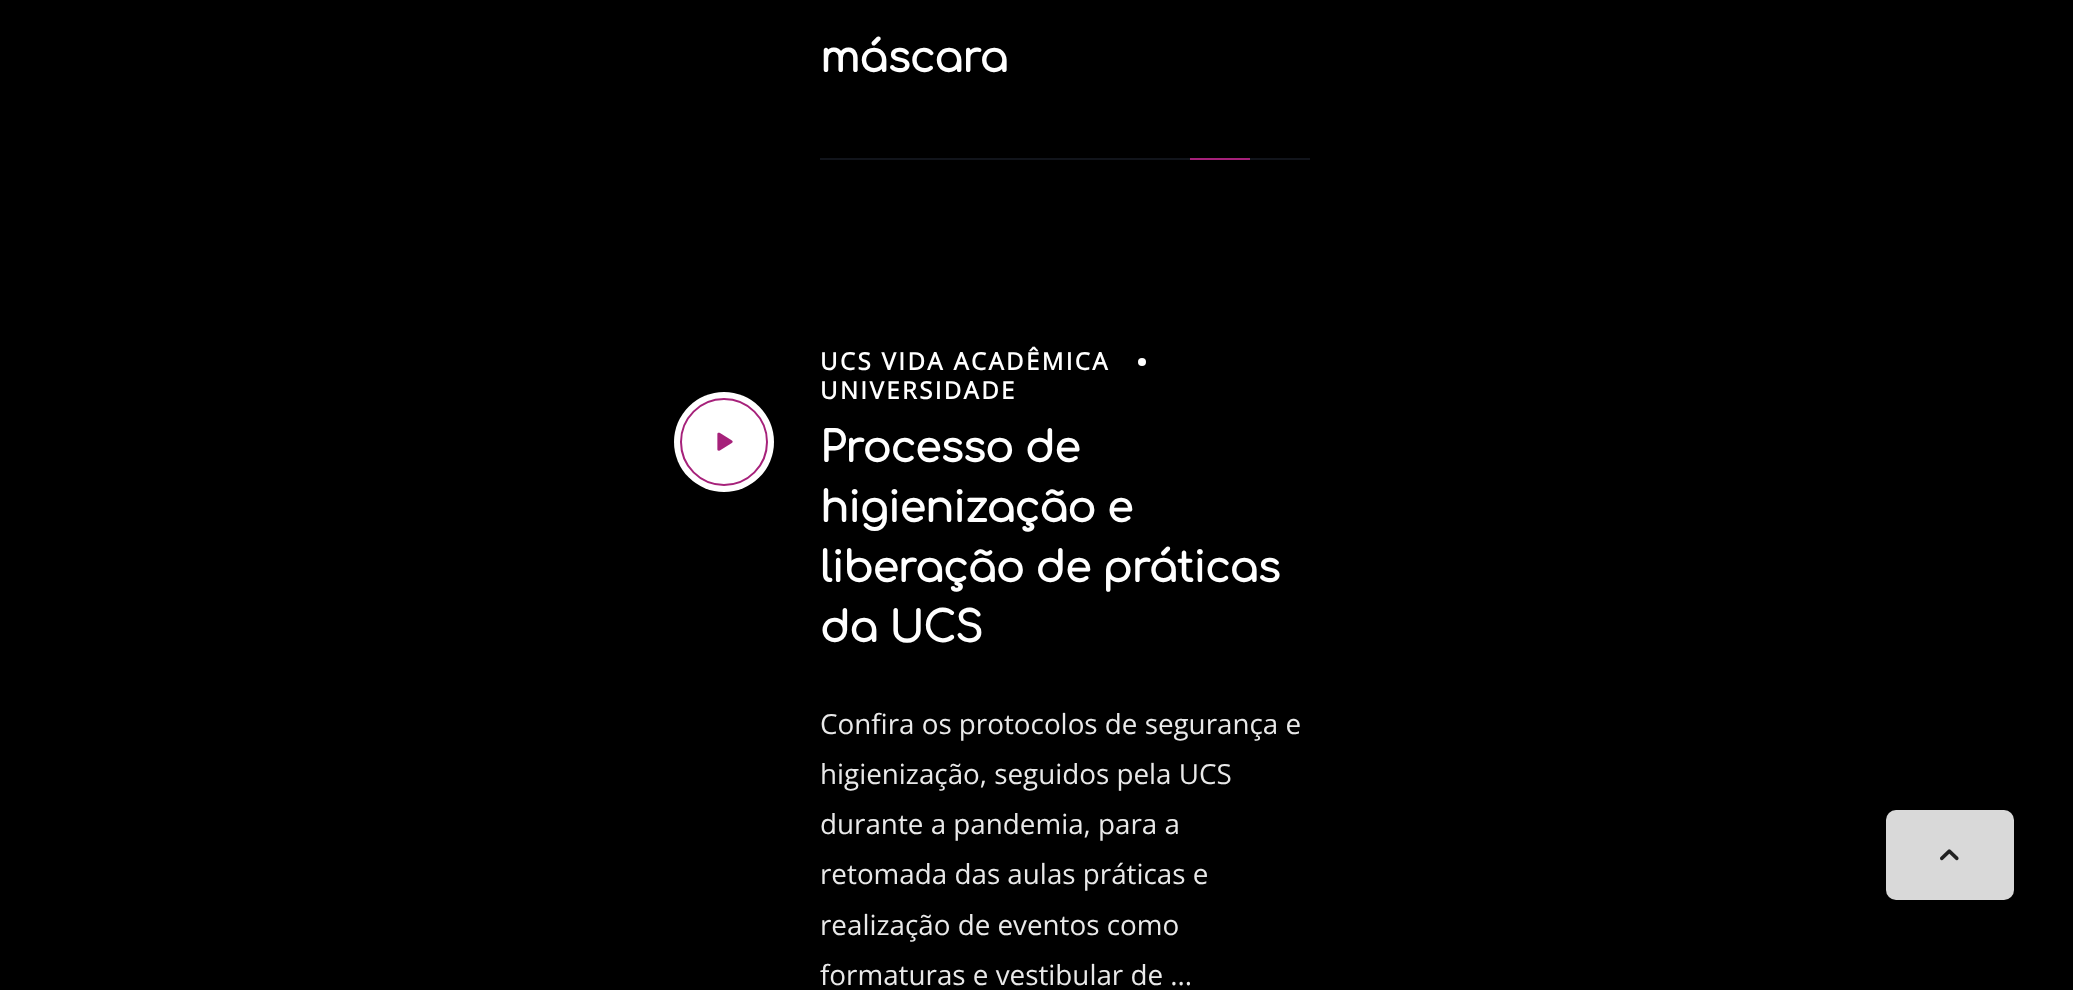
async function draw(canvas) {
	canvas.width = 2073;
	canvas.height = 990;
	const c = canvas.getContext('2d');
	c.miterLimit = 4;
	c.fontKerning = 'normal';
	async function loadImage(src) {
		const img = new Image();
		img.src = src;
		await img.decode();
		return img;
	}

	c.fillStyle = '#000';
	c.fillRect(0, 0, 2073, 990);
	c.letterSpacing = '-0.4px';
	c.font = 'bold 42px Comfortaa';
	c.fillStyle = '#fff';
	c.fillText('máscara', 820, 72);
	c.fillStyle = '#11141b';
	c.fillRect(820, 158, 490, 2);
	c.fillStyle = '#a6217a';
	c.fillRect(1190, 158, 60, 2);
	c.fillStyle = '#fff';
	c.beginPath();
	c.arc(724, 442, 50, 0, 2 * Math.PI);
	c.fill();
	c.beginPath();
	c.arc(724, 442, 43, 0, 2 * Math.PI);
	c.strokeStyle = '#a6217a';
	c.lineWidth = 2;
	c.stroke();
	c.drawImage(await loadImage('img1.png'), 717, 432, 16, 19);
	c.letterSpacing = '2.4px';
	c.font = 'bold 24px Open Sans';
	c.fillText('UCS VIDA ACADÊMICA', 820, 370);
	c.beginPath();
	c.arc(1142, 362, 4, 0, 2 * Math.PI);
	c.fill();
	c.fillText('UNIVERSIDADE', 820, 399);
	c.letterSpacing = '-0.4px';
	c.font = 'bold 42px Comfortaa';
	for (const [text, x, y] of [
		['Processo de', 820, 462],
		['higienização e', 820, 522],
		['liberação de práticas', 820, 582],
		['da UCS', 820, 642],
	]) {
		c.fillText(text, x, y);
	}
	c.letterSpacing = '0px';
	c.font = '27.8px Open Sans';
	c.fillStyle = '#e9e9e9';
	for (const [text, x, y] of [
		['Confira os protocolos de segurança e', 820, 734],
		['higienização, seguidos pela UCS', 820, 784],
		['durante a pandemia, para a', 820, 834],
		['retomada das aulas práticas e', 820, 884],
		['realização de eventos como', 820, 935],
		['formaturas e vestibular de ...', 820, 985],
	]) {
		c.fillText(text, x, y);
	}
	c.fillStyle = '#d9d9d9';
	c.beginPath();
	c.roundRect(1886, 810, 128, 90, 10);
	c.fill();
	c.drawImage(await loadImage('img2.png'), 1940, 849, 19, 12);
}

draw(document.querySelector('canvas'));
